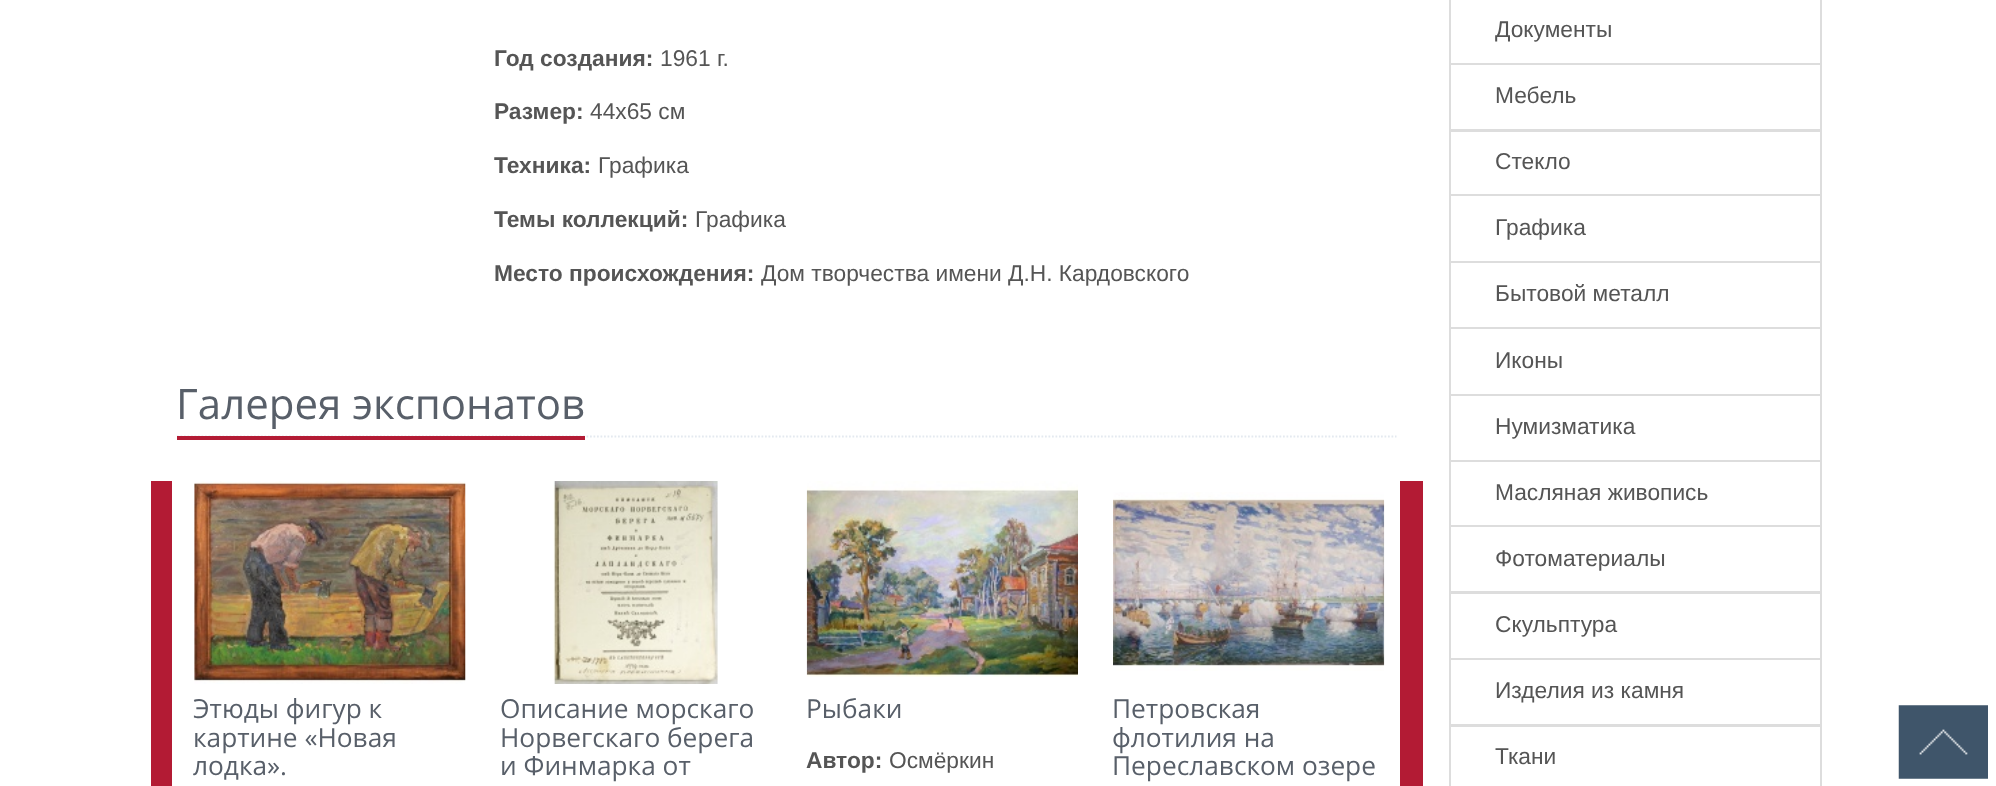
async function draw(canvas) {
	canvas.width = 1996;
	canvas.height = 786;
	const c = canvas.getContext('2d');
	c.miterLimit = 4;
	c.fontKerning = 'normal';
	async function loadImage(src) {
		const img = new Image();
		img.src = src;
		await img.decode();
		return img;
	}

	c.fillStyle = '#fff';
	c.fillRect(0, 0, 1996, 786);
	c.font = 'bold 22.75px Liberation Sans';
	c.fillStyle = '#555';
	c.fillText('Год создания:', 494, 66);
	c.font = '22.75px Liberation Sans';
	c.fillText('1961 г.', 660, 66);
	c.font = 'bold 22.75px Liberation Sans';
	c.fillText('Размер:', 494, 119);
	c.font = '22.75px Liberation Sans';
	c.fillText('44х65 см', 590, 119);
	c.font = 'bold 22.75px Liberation Sans';
	c.fillText('Техника:', 494, 173);
	c.font = '22.75px Liberation Sans';
	c.fillText('Графика', 598, 173);
	c.font = 'bold 22.75px Liberation Sans';
	c.fillText('Темы коллекций:', 494, 227);
	c.font = '22.75px Liberation Sans';
	c.fillText('Графика', 695, 227);
	c.font = 'bold 22.75px Liberation Sans';
	c.fillText('Место происхождения:', 494, 281);
	c.font = '22.75px Liberation Sans';
	c.fillText('Дом творчества имени Д.Н. Кардовского', 761, 281);
	c.beginPath();
	c.moveTo(177, 436.5);
	c.lineTo(1396.5, 436.5);
	c.strokeStyle = '#e4e9f0';
	c.lineWidth = 1.8;
	c.setLineDash([1.75, 1.75]);
	c.stroke();
	c.fillStyle = '#b31b34';
	c.fillRect(177, 436, 408, 4);
	c.font = '42px Open Sans';
	c.fillStyle = '#585f69';
	c.fillText('Галерея экспонатов', 176, 419);
	c.fillStyle = '#b31b34';
	c.fillRect(151, 481, 21, 305);
	c.drawImage(await loadImage('img1.png'), 194, 481, 272, 203);
	c.font = '26.25px Open Sans';
	c.fillStyle = '#585f69';
	for (const [text, x, y] of [
		['Этюды фигур к', 193, 718],
		['картине «Новая', 193, 747],
		['лодка».', 193, 775],
	]) {
		c.fillText(text, x, y);
	}
	c.drawImage(await loadImage('img2.png'), 553, 481, 165, 203);
	for (const [text, x, y] of [
		['Описание морскаго', 500, 718],
		['Норвегскаго берега', 500, 747],
		['и Финмарка от', 500, 775],
	]) {
		c.fillText(text, x, y);
	}
	c.drawImage(await loadImage('img3.png'), 806, 481, 272, 196);
	c.fillText('Рыбаки', 806, 718);
	c.font = 'bold 22.75px Liberation Sans';
	c.fillStyle = '#555';
	c.fillText('Автор:', 806, 768);
	c.font = '22.75px Liberation Sans';
	c.fillText('Осмёркин', 889, 768);
	c.drawImage(await loadImage('img4.png'), 1113, 492, 272, 179);
	c.font = '26.25px Open Sans';
	c.fillStyle = '#585f69';
	for (const [text, x, y] of [
		['Петровская', 1112, 718],
		['флотилия на', 1112, 747],
		['Переславском озере', 1112, 775],
	]) {
		c.fillText(text, x, y);
	}
	c.fillStyle = '#b31b34';
	c.fillRect(1400, 481, 23, 305);
	c.strokeStyle = '#ddd';
	c.lineWidth = 2;
	c.setLineDash([]);
	c.strokeRect(1450, -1, 371, 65);
	c.font = '22.75px Liberation Sans';
	c.fillStyle = '#555';
	c.fillText('Документы', 1495, 37);
	c.strokeRect(1450, 64, 371, 66);
	c.fillText('Мебель', 1495, 103);
	c.strokeRect(1450, 131, 371, 64);
	c.fillText('Стекло', 1495, 169);
	c.strokeRect(1450, 195, 371, 67);
	c.fillText('Графика', 1495, 235);
	c.strokeRect(1450, 262, 371, 66);
	c.fillText('Бытовой металл', 1495, 301);
	c.strokeRect(1450, 328, 371, 67);
	c.fillText('Иконы', 1495, 368);
	c.strokeRect(1450, 395, 371, 66);
	c.fillText('Нумизматика', 1495, 434);
	c.strokeRect(1450, 461, 371, 65);
	c.fillText('Масляная живопись', 1495, 500);
	c.strokeRect(1450, 526, 371, 66);
	c.fillText('Фотоматериалы', 1495, 566);
	c.strokeRect(1450, 593, 371, 66);
	c.fillText('Скульптура', 1495, 632);
	c.strokeRect(1450, 659, 371, 66);
	c.fillText('Изделия из камня', 1495, 698);
	c.strokeRect(1450, 726, 371, 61);
	c.fillText('Ткани', 1495, 764);
	c.drawImage(await loadImage('img5.png'), 1898, 705, 90, 74);
}

draw(document.querySelector('canvas'));
